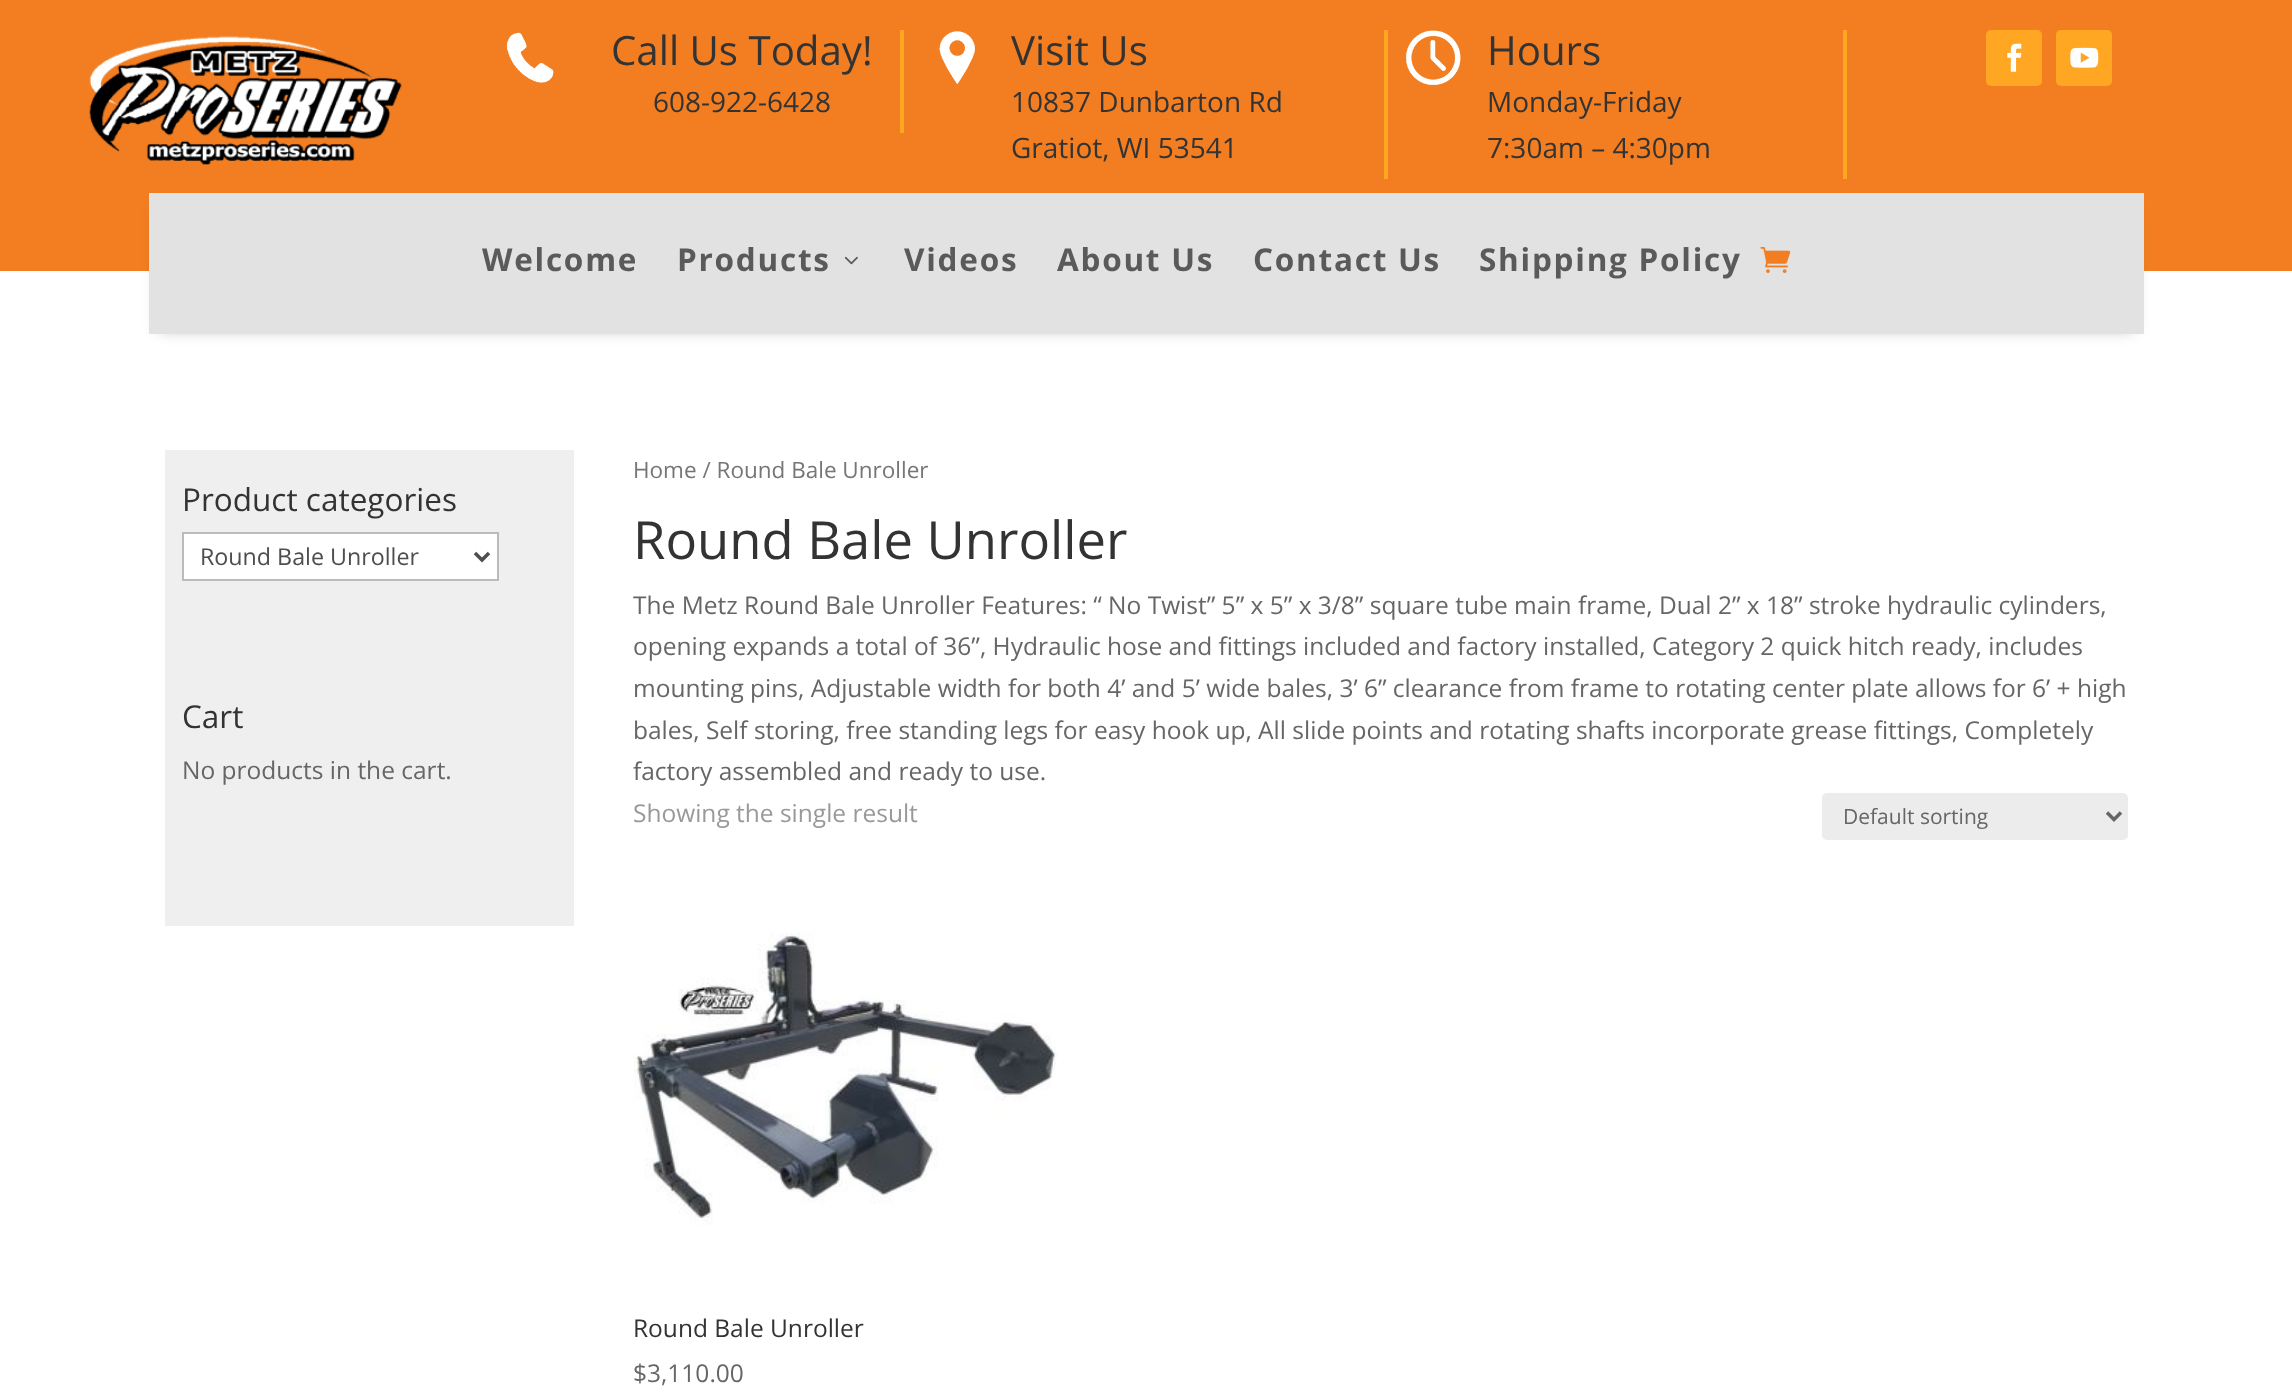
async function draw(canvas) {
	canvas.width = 2292;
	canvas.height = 1393;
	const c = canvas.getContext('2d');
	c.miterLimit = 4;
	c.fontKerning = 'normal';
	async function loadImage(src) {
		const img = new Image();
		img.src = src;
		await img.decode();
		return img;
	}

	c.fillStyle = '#fff';
	c.fillRect(0, 0, 2292, 1393);
	c.fillStyle = '#f27e21';
	c.fillRect(0, 0, 2292, 271);
	c.drawImage(await loadImage('img1.png'), 89, 36, 313, 129);
	c.fillStyle = '#ffa723';
	c.fillRect(900, 30, 4, 103);
	c.drawImage(await loadImage('img2.png'), 506, 32, 48, 51);
	c.font = '40.25px Open Sans';
	c.fillStyle = '#333';
	c.fillText('Call Us Today!', 611, 65);
	c.font = '28px Open Sans';
	c.fillText('608-922-6428', 653, 112);
	c.fillStyle = '#ffa723';
	c.fillRect(1384, 30, 4, 149);
	c.drawImage(await loadImage('img3.png'), 939, 31, 36, 53);
	c.font = '40.25px Open Sans';
	c.fillStyle = '#333';
	c.fillText('Visit Us', 1011, 65);
	c.font = '28px Open Sans';
	c.fillText('10837 Dunbarton Rd', 1011, 112);
	c.fillText('Gratiot, WI 53541', 1011, 158);
	c.fillStyle = '#ffa723';
	c.fillRect(1843, 30, 4, 149);
	c.drawImage(await loadImage('img4.png'), 1406, 30, 55, 55);
	c.font = '40.25px Open Sans';
	c.fillStyle = '#333';
	c.fillText('Hours', 1487, 65);
	c.font = '28px Open Sans';
	c.fillText('Monday-Friday', 1487, 112);
	c.fillText('7:30am – 4:30pm', 1487, 158);
	c.fillStyle = '#ffa723';
	c.beginPath();
	c.roundRect(1986, 30, 56, 56, 5);
	c.fill();
	c.drawImage(await loadImage('img5.png'), 2007, 43, 15, 29);
	c.beginPath();
	c.roundRect(2056, 30, 56, 56, 5);
	c.fill();
	c.drawImage(await loadImage('img6.png'), 2070, 47, 29, 21);
	c.fillStyle = '#0000004d';
	c.filter = 'blur(8px)';
	c.beginPath();
	c.rect(159, 208, 1974, 121);
	c.fill();
	c.filter = 'none';
	c.fillStyle = '#e2e2e2';
	c.fillRect(149, 193, 1995, 141);
	c.letterSpacing = '1.75px';
	c.font = 'bold 31.5px Open Sans';
	c.fillStyle = '#5a5a5a';
	c.fillText('Welcome', 482, 271);
	c.fillText('Products', 677, 271);
	c.drawImage(await loadImage('img7.png'), 844, 256, 14, 9);
	for (const [text, x, y] of [
		['Videos', 904, 271],
		['About Us', 1057, 271],
		['Contact Us', 1253, 271],
		['Shipping Policy', 1479, 271],
	]) {
		c.fillText(text, x, y);
	}
	c.drawImage(await loadImage('img8.png'), 1760, 247, 31, 26);
	c.fillStyle = '#efefef';
	c.fillRect(165, 450, 409, 476);
	c.letterSpacing = '0px';
	c.font = '31.5px Open Sans';
	c.fillStyle = '#333';
	c.fillText('Product categories', 182, 511);
	c.fillStyle = '#fff';
	c.beginPath();
	c.rect(183, 533, 315, 47);
	c.fill();
	c.strokeStyle = '#bbb';
	c.lineWidth = 2;
	c.stroke();
	c.beginPath();
	c.moveTo(475, 553);
	c.lineTo(482, 560);
	c.lineTo(489, 553);
	c.strokeStyle = '#4e4e4e';
	c.lineWidth = 3.5;
	c.stroke();
	c.font = '23.25px Open Sans';
	c.fillStyle = '#4e4e4e';
	c.fillText('Round Bale Unroller', 200, 565);
	c.font = '31.5px Open Sans';
	c.fillStyle = '#333';
	c.fillText('Cart', 182, 728);
	c.font = '24.5px Open Sans';
	c.fillStyle = '#666';
	c.fillText('No products in the cart.', 182, 779);
	c.font = '22.5px Open Sans';
	c.fillStyle = '#767676';
	c.fillText('Home / Round Bale Unroller', 633, 478);
	c.font = '52.5px Open Sans';
	c.fillStyle = '#333';
	c.fillText('Round Bale Unroller', 633, 559);
	c.font = '24.5px Open Sans';
	c.fillStyle = '#666';
	for (const [text, x, y] of [
		['The Metz Round Bale Unroller Features: “ No Twist” 5” x 5” x 3/8” square tube main frame, Dual 2” x 18” stroke hydraulic cylinders,', 633, 614],
		['opening expands a total of 36”, Hydraulic hose and fittings included and factory installed, Category 2 quick hitch ready, includes', 633, 655],
		['mounting pins, Adjustable width for both 4’ and 5’ wide bales, 3’ 6” clearance from frame to rotating center plate allows for 6’ + high', 633, 697],
		['bales, Self storing, free standing legs for easy hook up, All slide points and rotating shafts incorporate grease fittings, Completely', 633, 739],
		['factory assembled and ready to use.', 633, 780],
	]) {
		c.fillText(text, x, y);
	}
	c.fillStyle = '#999';
	c.fillText('Showing the single result', 633, 822);
	c.fillStyle = '#ececec';
	c.beginPath();
	c.roundRect(1822, 793, 306, 47, 5);
	c.fill();
	c.beginPath();
	c.moveTo(2107, 812.5);
	c.lineTo(2114, 819.5);
	c.lineTo(2121, 812.5);
	c.strokeStyle = '#666';
	c.stroke();
	c.font = '21px Open Sans';
	c.fillStyle = '#666';
	c.fillText('Default sorting', 1843, 824);
	c.drawImage(await loadImage('img9.png'), 633, 932, 424, 294);
	c.font = '24.5px Open Sans';
	c.fillStyle = '#333';
	c.fillText('Round Bale Unroller', 633, 1337);
	c.fillStyle = '#666';
	c.fillText('$3,110.00', 633, 1382);
}

draw(document.querySelector('canvas'));
